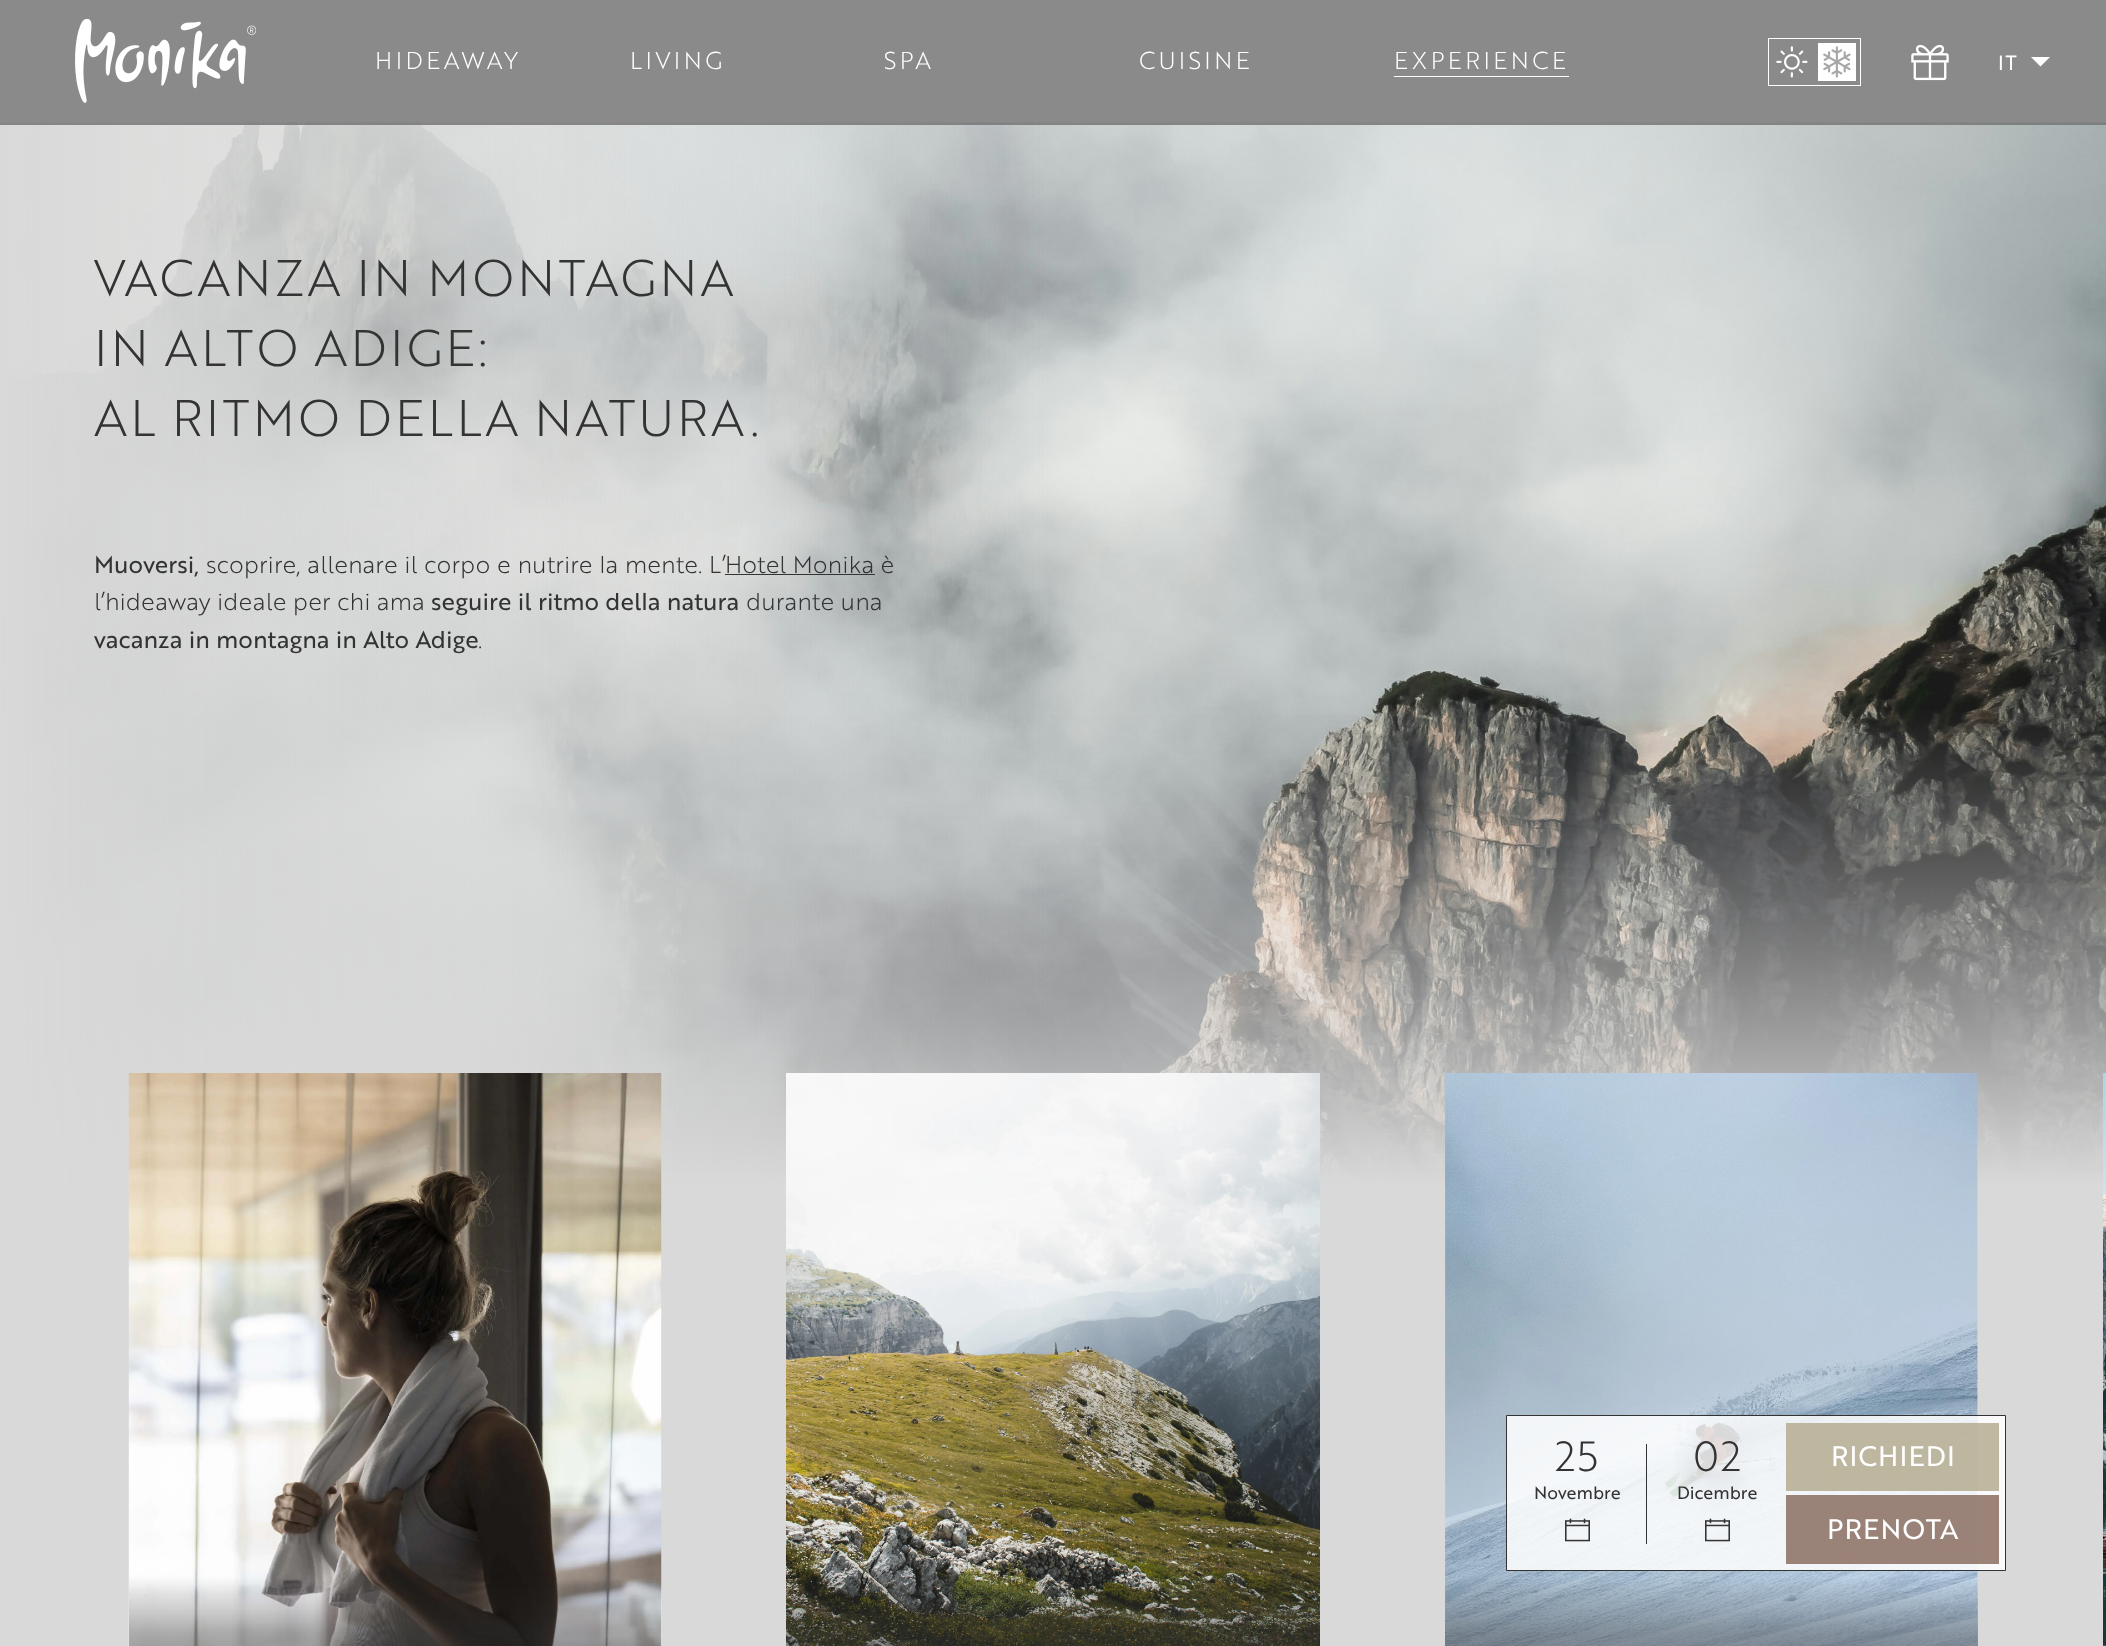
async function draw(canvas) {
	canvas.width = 2106;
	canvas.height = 1646;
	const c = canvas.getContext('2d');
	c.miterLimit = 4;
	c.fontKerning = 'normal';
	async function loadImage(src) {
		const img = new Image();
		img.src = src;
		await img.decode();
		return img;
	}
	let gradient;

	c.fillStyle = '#fff';
	c.fillRect(0, 0, 2106, 1646);
	c.drawImage(await loadImage('img5.png'), 0, 122, 2106, 1063);
	c.fillStyle = '#767676d9';
	c.fillRect(0, 0, 2106, 125);
	c.drawImage(await loadImage('img1.png'), 75, 19, 181, 84);
	c.letterSpacing = '2.5px';
	c.font = '300 23.75px "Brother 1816"';
	c.fillStyle = '#fff';
	for (const [text, x, y] of [
		['HIDEAWAY', 375, 69],
		['LIVING', 630, 69],
		['SPA', 884, 69],
		['CUISINE', 1139, 69],
		['EXPERIENCE', 1394, 69],
	]) {
		c.fillText(text, x, y);
	}
	c.fillRect(1394, 76, 175, 1);
	c.strokeStyle = '#fff';
	c.strokeRect(1768.5, 38.5, 92, 47);
	c.drawImage(await loadImage('img2.png'), 1776, 46, 32, 32);
	c.fillRect(1818, 43, 38, 38);
	c.drawImage(await loadImage('img3.png'), 1823, 46, 28, 32);
	c.drawImage(await loadImage('img4.png'), 1911, 44, 38, 37);
	c.letterSpacing = '1px';
	c.font = '20px "Brother 1816"';
	c.fillText('IT', 1998, 70);
	c.beginPath();
	c.moveTo(2050, 57);
	c.lineTo(2040.5, 66.5);
	c.lineTo(2031, 57);
	c.closePath();
	c.fill();
	c.letterSpacing = '1.25px';
	c.font = '300 50px "Brother 1816"';
	c.fillStyle = '#333';
	for (const [text, x, y] of [
		['VACANZA IN MONTAGNA', 94, 296],
		['IN ALTO ADIGE:', 94, 366],
		['AL RITMO DELLA NATURA.', 94, 436],
	]) {
		c.fillText(text, x, y);
	}
	c.letterSpacing = '0px';
	c.font = '23.75px "Brother 1816"';
	c.fillText('Muoversi,', 94, 573);
	c.wordSpacing = '0.25px';
	c.font = '300 23.75px "Brother 1816"';
	c.fillText('scoprire, allenare il corpo e nutrire la mente. L’', 206, 573);
	c.wordSpacing = '0px';
	c.fillText('Hotel Monika è', 725, 573);
	c.fillRect(725, 574, 150, 1);
	c.fillText('l’hideaway ideale per chi ama', 94, 610);
	c.font = '23.75px "Brother 1816"';
	c.fillText('seguire il ritmo della natura', 431, 610);
	c.font = '300 23.75px "Brother 1816"';
	c.fillText('durante una', 746, 610);
	c.font = '23.75px "Brother 1816"';
	c.fillText('vacanza in montagna in Alto Adige', 94, 648);
	c.font = '300 23.75px "Brother 1816"';
	c.fillText('.', 478, 648);
	c.fillStyle = '#d9d9d9';
	c.fillRect(0, 1185, 2103, 461);
	c.drawImage(await loadImage('img6.png'), 128, 1073, 534, 573);
	c.drawImage(await loadImage('img7.png'), 786, 1073, 534, 573);
	c.drawImage(await loadImage('img8.png'), 1445, 1073, 533, 573);
	gradient = c.createLinearGradient(1711, 1576, 1711, 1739);
	gradient.addColorStop(0, '#33333300');
	gradient.addColorStop(0.35, '#33333366');
	gradient.addColorStop(0.7, '#33333399');
	c.fillStyle = gradient;
	c.fillRect(1445, 1579, 533, 67);
	c.drawImage(await loadImage('img9.png'), 2103, 1073, 3, 573);
	c.fillStyle = '#ffffffd9';
	c.beginPath();
	c.rect(1506.5, 1415.5, 499, 155);
	c.fill();
	c.strokeStyle = '#333';
	c.stroke();
	c.font = '300 41px "Brother 1816"';
	c.fillStyle = '#333';
	c.fillText('25', 1555, 1471);
	c.font = '17.5px "Brother 1816"';
	c.fillText('Novembre', 1534, 1499);
	c.drawImage(await loadImage('img10.png'), 1565, 1518, 25, 24);
	c.fillRect(1646, 1444, 1, 100);
	c.font = '300 41px "Brother 1816"';
	c.fillText('02', 1693, 1471);
	c.font = '17.5px "Brother 1816"';
	c.fillText('Dicembre', 1677, 1499);
	c.drawImage(await loadImage('img11.png'), 1705, 1518, 25, 24);
	c.fillStyle = '#b5ac90d9';
	c.fillRect(1786, 1423, 213, 68);
	c.font = '27.5px "Brother 1816"';
	c.fillStyle = '#fff';
	c.fillText('RICHIEDI', 1831, 1466);
	c.fillStyle = '#8a6d60d9';
	c.fillRect(1786, 1495, 213, 69);
	c.fillStyle = '#fff';
	c.fillText('PRENOTA', 1827, 1539);
}

draw(document.querySelector('canvas'));
